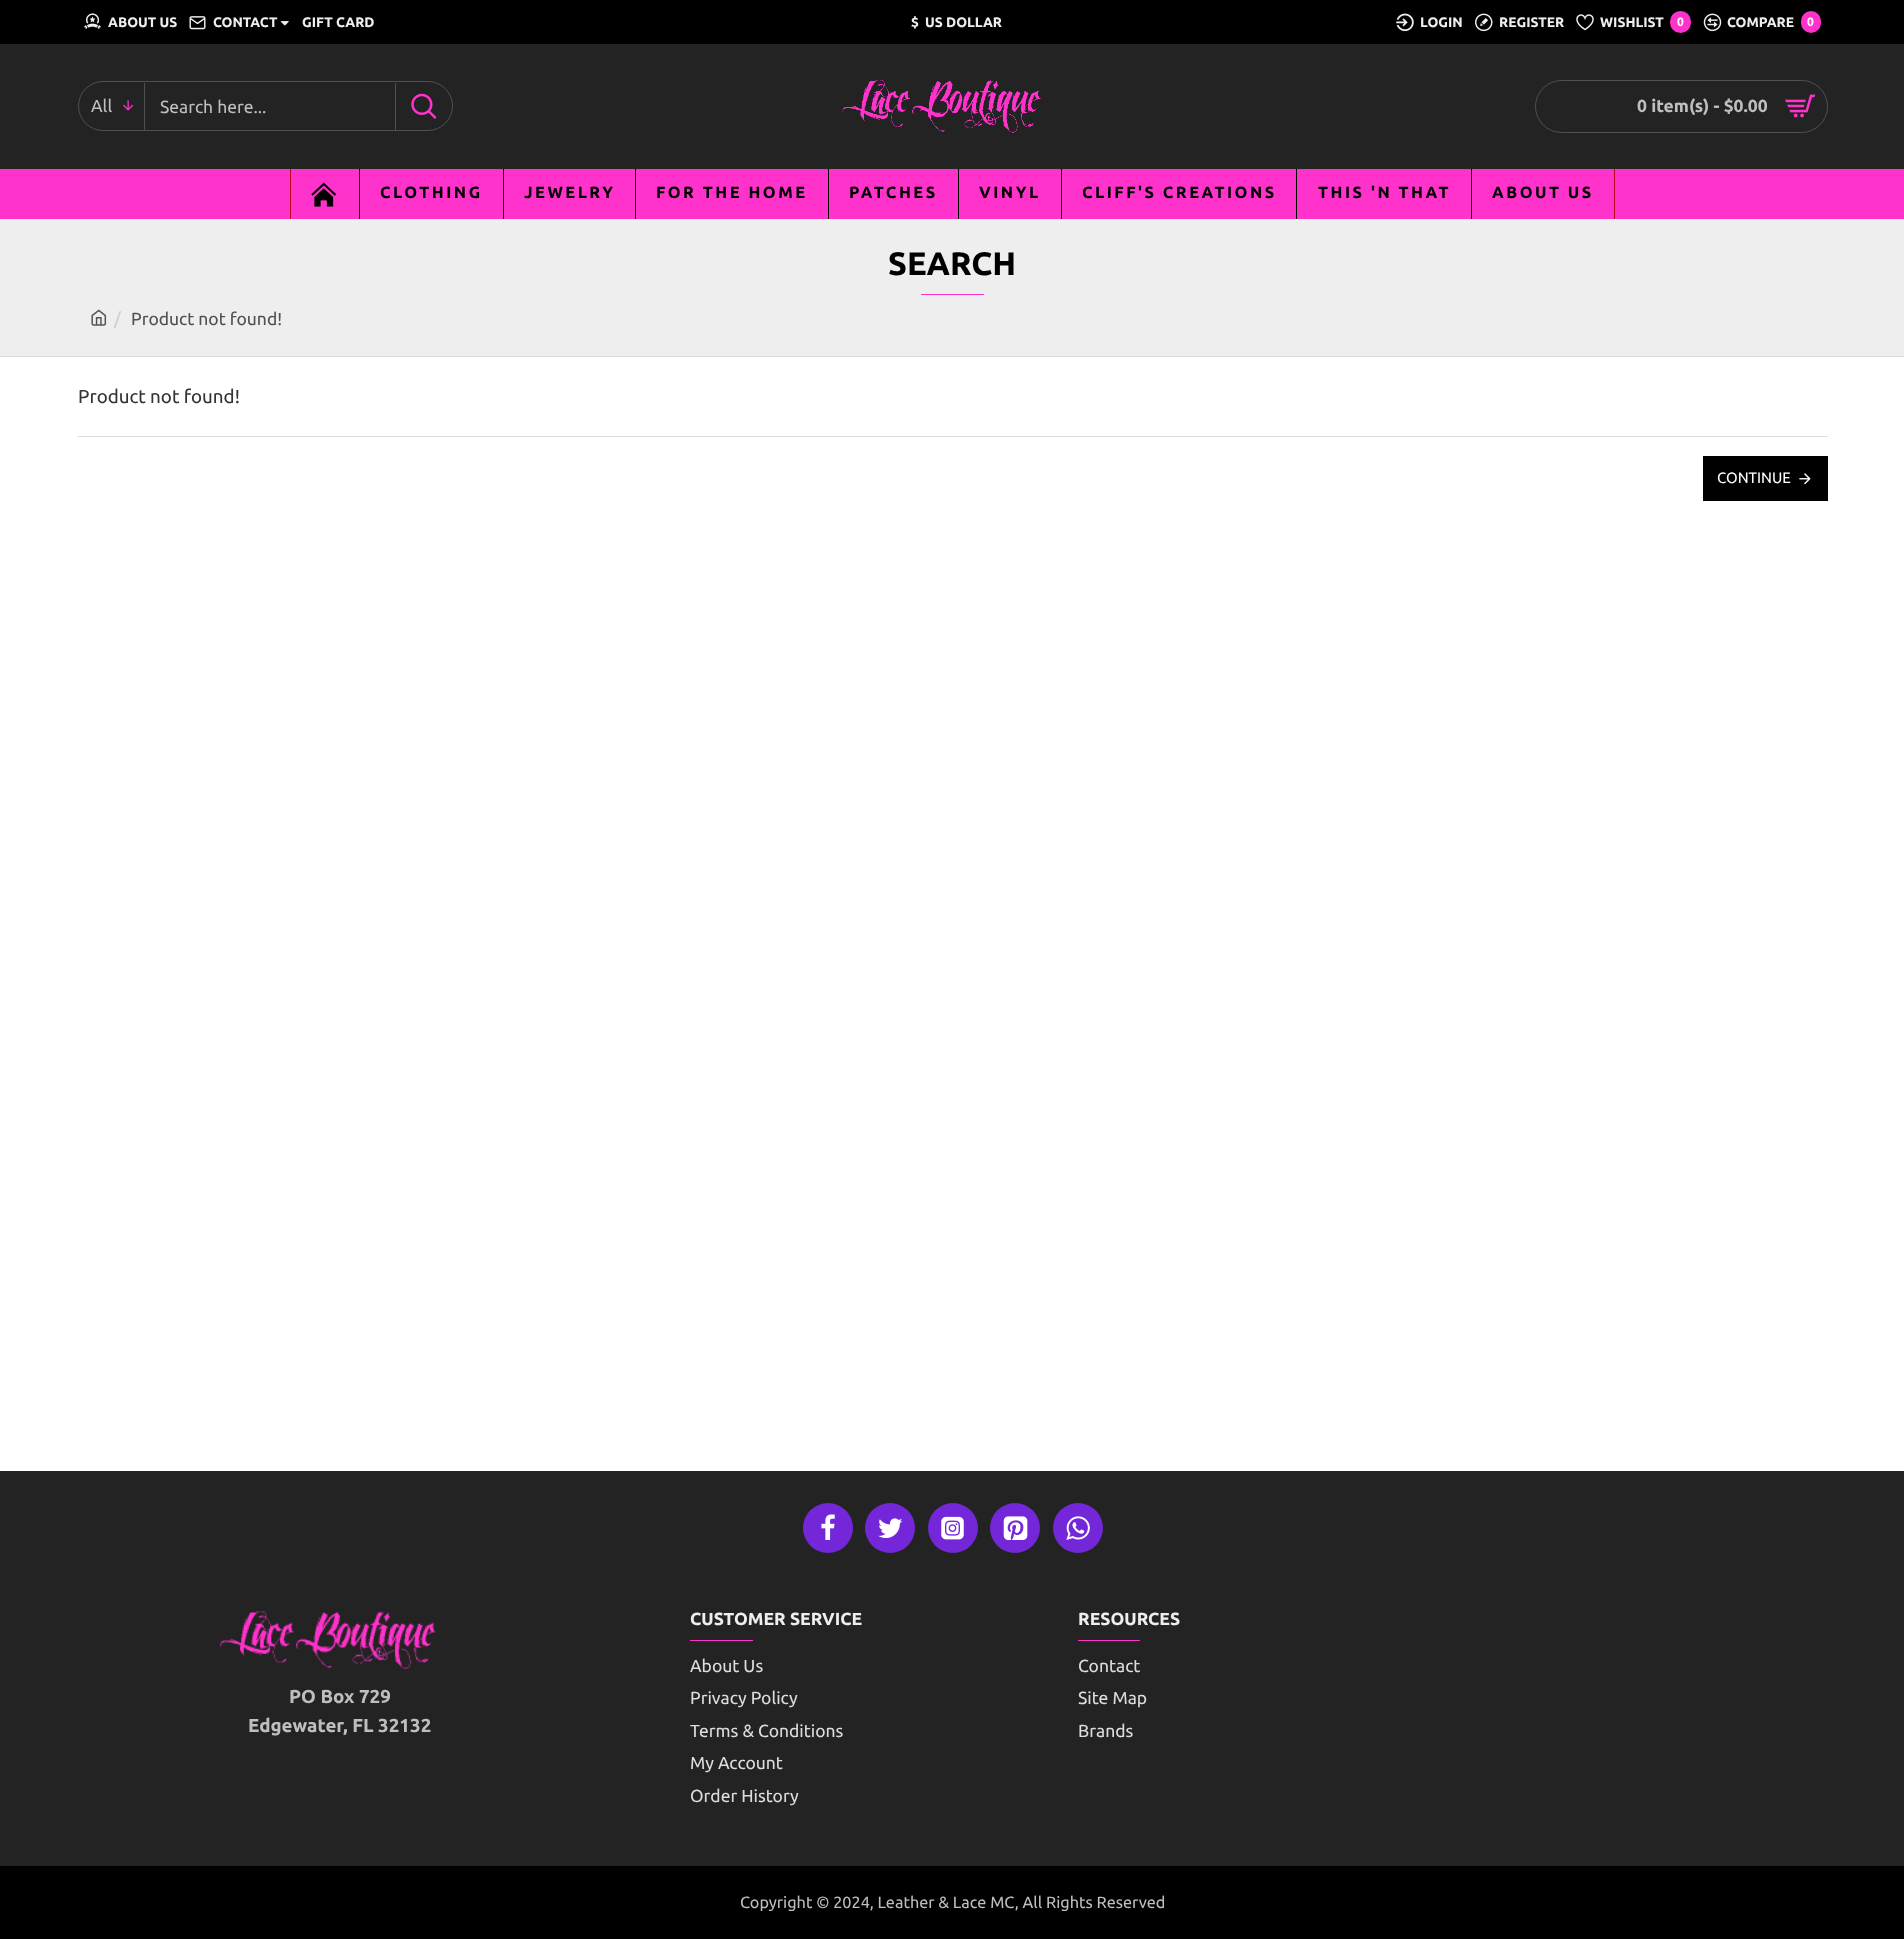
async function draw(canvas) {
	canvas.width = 1904;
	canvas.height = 1939;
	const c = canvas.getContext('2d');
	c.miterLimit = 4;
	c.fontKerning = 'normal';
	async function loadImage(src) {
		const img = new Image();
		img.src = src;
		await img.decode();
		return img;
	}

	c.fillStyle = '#fff';
	c.fillRect(0, 0, 1904, 1939);
	c.fillStyle = '#232323';
	c.fillRect(0, 44, 1904, 125);
	c.fillStyle = '#000';
	c.fillRect(0, 0, 1904, 44);
	c.drawImage(await loadImage('img1.png'), 83, 13, 19, 17);
	c.font = 'bold 13.75px Ubuntu';
	c.fillStyle = '#eee';
	c.fillText('ABOUT US', 108, 27);
	c.drawImage(await loadImage('img2.png'), 189, 16, 17, 14);
	c.fillText('CONTACT', 213, 27);
	c.drawImage(await loadImage('img3.png'), 280, 21, 9, 5);
	for (const [text, x, y] of [
		['GIFT CARD', 302, 27],
		['$', 911, 27],
		['US DOLLAR', 925, 27],
	]) {
		c.fillText(text, x, y);
	}
	c.drawImage(await loadImage('img4.png'), 1396, 13, 18, 19);
	c.fillText('LOGIN', 1420, 27);
	c.drawImage(await loadImage('img5.png'), 1475, 13, 18, 19);
	c.fillText('REGISTER', 1499, 27);
	c.drawImage(await loadImage('img6.png'), 1576, 14, 18, 17);
	c.fillText('WISHLIST', 1600, 27);
	c.fillStyle = '#ff32cb';
	c.beginPath();
	c.roundRect(1670, 11, 21, 22, 10.5);
	c.fill();
	c.font = 'bold 12px Ubuntu';
	c.fillStyle = '#fff';
	c.fillText('0', 1677, 26);
	c.drawImage(await loadImage('img7.png'), 1703, 13, 19, 19);
	c.font = 'bold 13.75px Ubuntu';
	c.fillStyle = '#eee';
	c.fillText('COMPARE', 1727, 27);
	c.fillStyle = '#ff32cb';
	c.beginPath();
	c.roundRect(1801, 11, 20, 22, 10);
	c.fill();
	c.font = 'bold 12px Ubuntu';
	c.fillStyle = '#fff';
	c.fillText('0', 1807, 26);
	c.beginPath();
	c.roundRect(78.5, 81.5, 374, 49, 24.5);
	c.strokeStyle = '#505050';
	c.stroke();
	c.fillStyle = '#505050';
	c.fillRect(144, 83, 1, 47);
	c.font = '17.5px Ubuntu';
	c.fillStyle = '#bebebe';
	c.fillText('All', 91, 112);
	c.drawImage(await loadImage('img8.png'), 123, 100, 11, 11);
	c.fillText('Search here...', 160, 113);
	c.fillStyle = '#505050';
	c.fillRect(395, 83, 1, 47);
	c.drawImage(await loadImage('img9.png'), 411, 93, 26, 26);
	c.drawImage(await loadImage('img10.png'), 842, 80, 199, 53);
	c.beginPath();
	c.roundRect(1535.5, 80.5, 292, 52, 26);
	c.stroke();
	c.font = 'bold 17.5px Ubuntu';
	c.fillStyle = '#bebebe';
	c.fillText('0 item(s) - $0.00', 1637, 112);
	c.drawImage(await loadImage('img11.png'), 1785, 94, 31, 24);
	for (const [x, y, w, h, color] of [
		[0, 169, 1904, 50, '#ff32cb'],
		[1614, 169, 1, 50, '#b9091e'],
		[290, 169, 1, 50, '#b9091e'],
	]) {
		c.fillStyle = color;
		c.fillRect(x, y, w, h);
	}
	c.drawImage(await loadImage('img12.png'), 311, 182, 26, 25);
	c.fillStyle = '#000';
	c.fillRect(359, 169, 1, 50);
	c.letterSpacing = '2.5px';
	c.font = 'bold 16.25px Ubuntu';
	c.fillText('CLOTHING', 380, 198);
	c.fillRect(503, 169, 1, 50);
	c.fillText('JEWELRY', 524, 198);
	c.fillRect(635, 169, 1, 50);
	c.fillText('FOR THE HOME', 656, 198);
	c.fillRect(828, 169, 1, 50);
	c.fillText('PATCHES', 849, 198);
	c.fillRect(958, 169, 1, 50);
	c.fillText('VINYL', 979, 198);
	c.fillRect(1061, 169, 1, 50);
	c.save();
	c.beginPath();
	c.rect(1083, 181, 193, 24);
	c.clip();
	c.fillText('CLIFF\'S CREATIONS', 1082, 198);
	c.restore();
	c.fillRect(1296, 169, 1, 50);
	c.fillText('THIS \'N THAT', 1318, 198);
	c.fillRect(1471, 169, 1, 50);
	c.fillText('ABOUT US', 1492, 198);
	c.fillStyle = '#eee';
	c.fillRect(0, 219, 1904, 137);
	c.letterSpacing = '0px';
	c.font = 'bold 32.5px Ubuntu';
	c.fillStyle = '#000';
	c.fillText('SEARCH', 888, 275);
	c.fillStyle = '#ff32cb';
	c.fillRect(921, 294, 63, 1);
	c.fillStyle = '#ddd';
	c.fillRect(0, 356, 1904, 1);
	c.drawImage(await loadImage('img13.png'), 91, 309, 16, 17);
	c.font = '17.5px Ubuntu';
	c.fillStyle = '#ccc';
	c.fillText('/', 114, 325);
	c.fillStyle = '#505050';
	c.fillText('Product not found!', 131, 325);
	c.font = '18.75px Ubuntu';
	c.fillStyle = '#333';
	c.fillText('Product not found!', 78, 403);
	c.fillStyle = '#ddd';
	c.fillRect(78, 436, 1750, 1);
	c.fillStyle = '#000';
	c.fillRect(1703, 456, 125, 45);
	c.font = '15px Ubuntu';
	c.fillStyle = '#fff';
	c.fillText('CONTINUE', 1717, 483);
	c.drawImage(await loadImage('img14.png'), 1799, 473, 12, 12);
	c.fillStyle = '#232323';
	c.fillRect(0, 1471, 1904, 395);
	c.fillStyle = '#7427d9';
	c.beginPath();
	c.arc(828, 1528, 25, 0, 2 * Math.PI);
	c.fill();
	c.drawImage(await loadImage('img15.png'), 821, 1514, 14, 26);
	c.beginPath();
	c.arc(890, 1528, 25, 0, 2 * Math.PI);
	c.fill();
	c.drawImage(await loadImage('img16.png'), 878, 1518, 25, 20);
	c.beginPath();
	c.arc(953, 1528, 25, 0, 2 * Math.PI);
	c.fill();
	c.drawImage(await loadImage('img17.png'), 941, 1516, 23, 24);
	c.beginPath();
	c.arc(1015, 1528, 25, 0, 2 * Math.PI);
	c.fill();
	c.drawImage(await loadImage('img18.png'), 1003, 1516, 25, 24);
	c.beginPath();
	c.arc(1078, 1528, 25, 0, 2 * Math.PI);
	c.fill();
	c.drawImage(await loadImage('img19.png'), 1066, 1516, 24, 24);
	c.drawImage(await loadImage('img20.png'), 219, 1611, 218, 58);
	c.font = 'bold 18.75px Ubuntu';
	c.fillStyle = '#bebebe';
	c.fillText('PO Box 729', 289, 1703);
	c.fillText('Edgewater, FL 32132', 248, 1732);
	c.font = 'bold 17.5px Ubuntu';
	c.fillStyle = '#eee';
	c.fillText('CUSTOMER SERVICE', 690, 1625);
	c.fillStyle = '#ff32cb';
	c.fillRect(690, 1640, 63, 1);
	c.font = '17.5px Ubuntu';
	c.fillStyle = '#ddd';
	for (const [text, x, y] of [
		['About Us', 690, 1672],
		['Privacy Policy', 690, 1704],
		['Terms & Conditions', 690, 1737],
		['My Account', 690, 1769],
		['Order History', 690, 1802],
	]) {
		c.fillText(text, x, y);
	}
	c.font = 'bold 17.5px Ubuntu';
	c.fillStyle = '#eee';
	c.fillText('RESOURCES', 1078, 1625);
	c.fillStyle = '#ff32cb';
	c.fillRect(1078, 1640, 62, 1);
	c.font = '17.5px Ubuntu';
	c.fillStyle = '#ddd';
	for (const [text, x, y] of [
		['Contact', 1078, 1672],
		['Site Map', 1078, 1704],
		['Brands', 1078, 1737],
	]) {
		c.fillText(text, x, y);
	}
	c.fillStyle = '#000';
	c.fillRect(0, 1866, 1904, 73);
	c.font = '16.25px Ubuntu';
	c.fillStyle = '#bebebe';
	c.fillText('Copyright © 2024, Leather & Lace MC, All Rights Reserved', 740, 1908);
}

draw(document.querySelector('canvas'));
